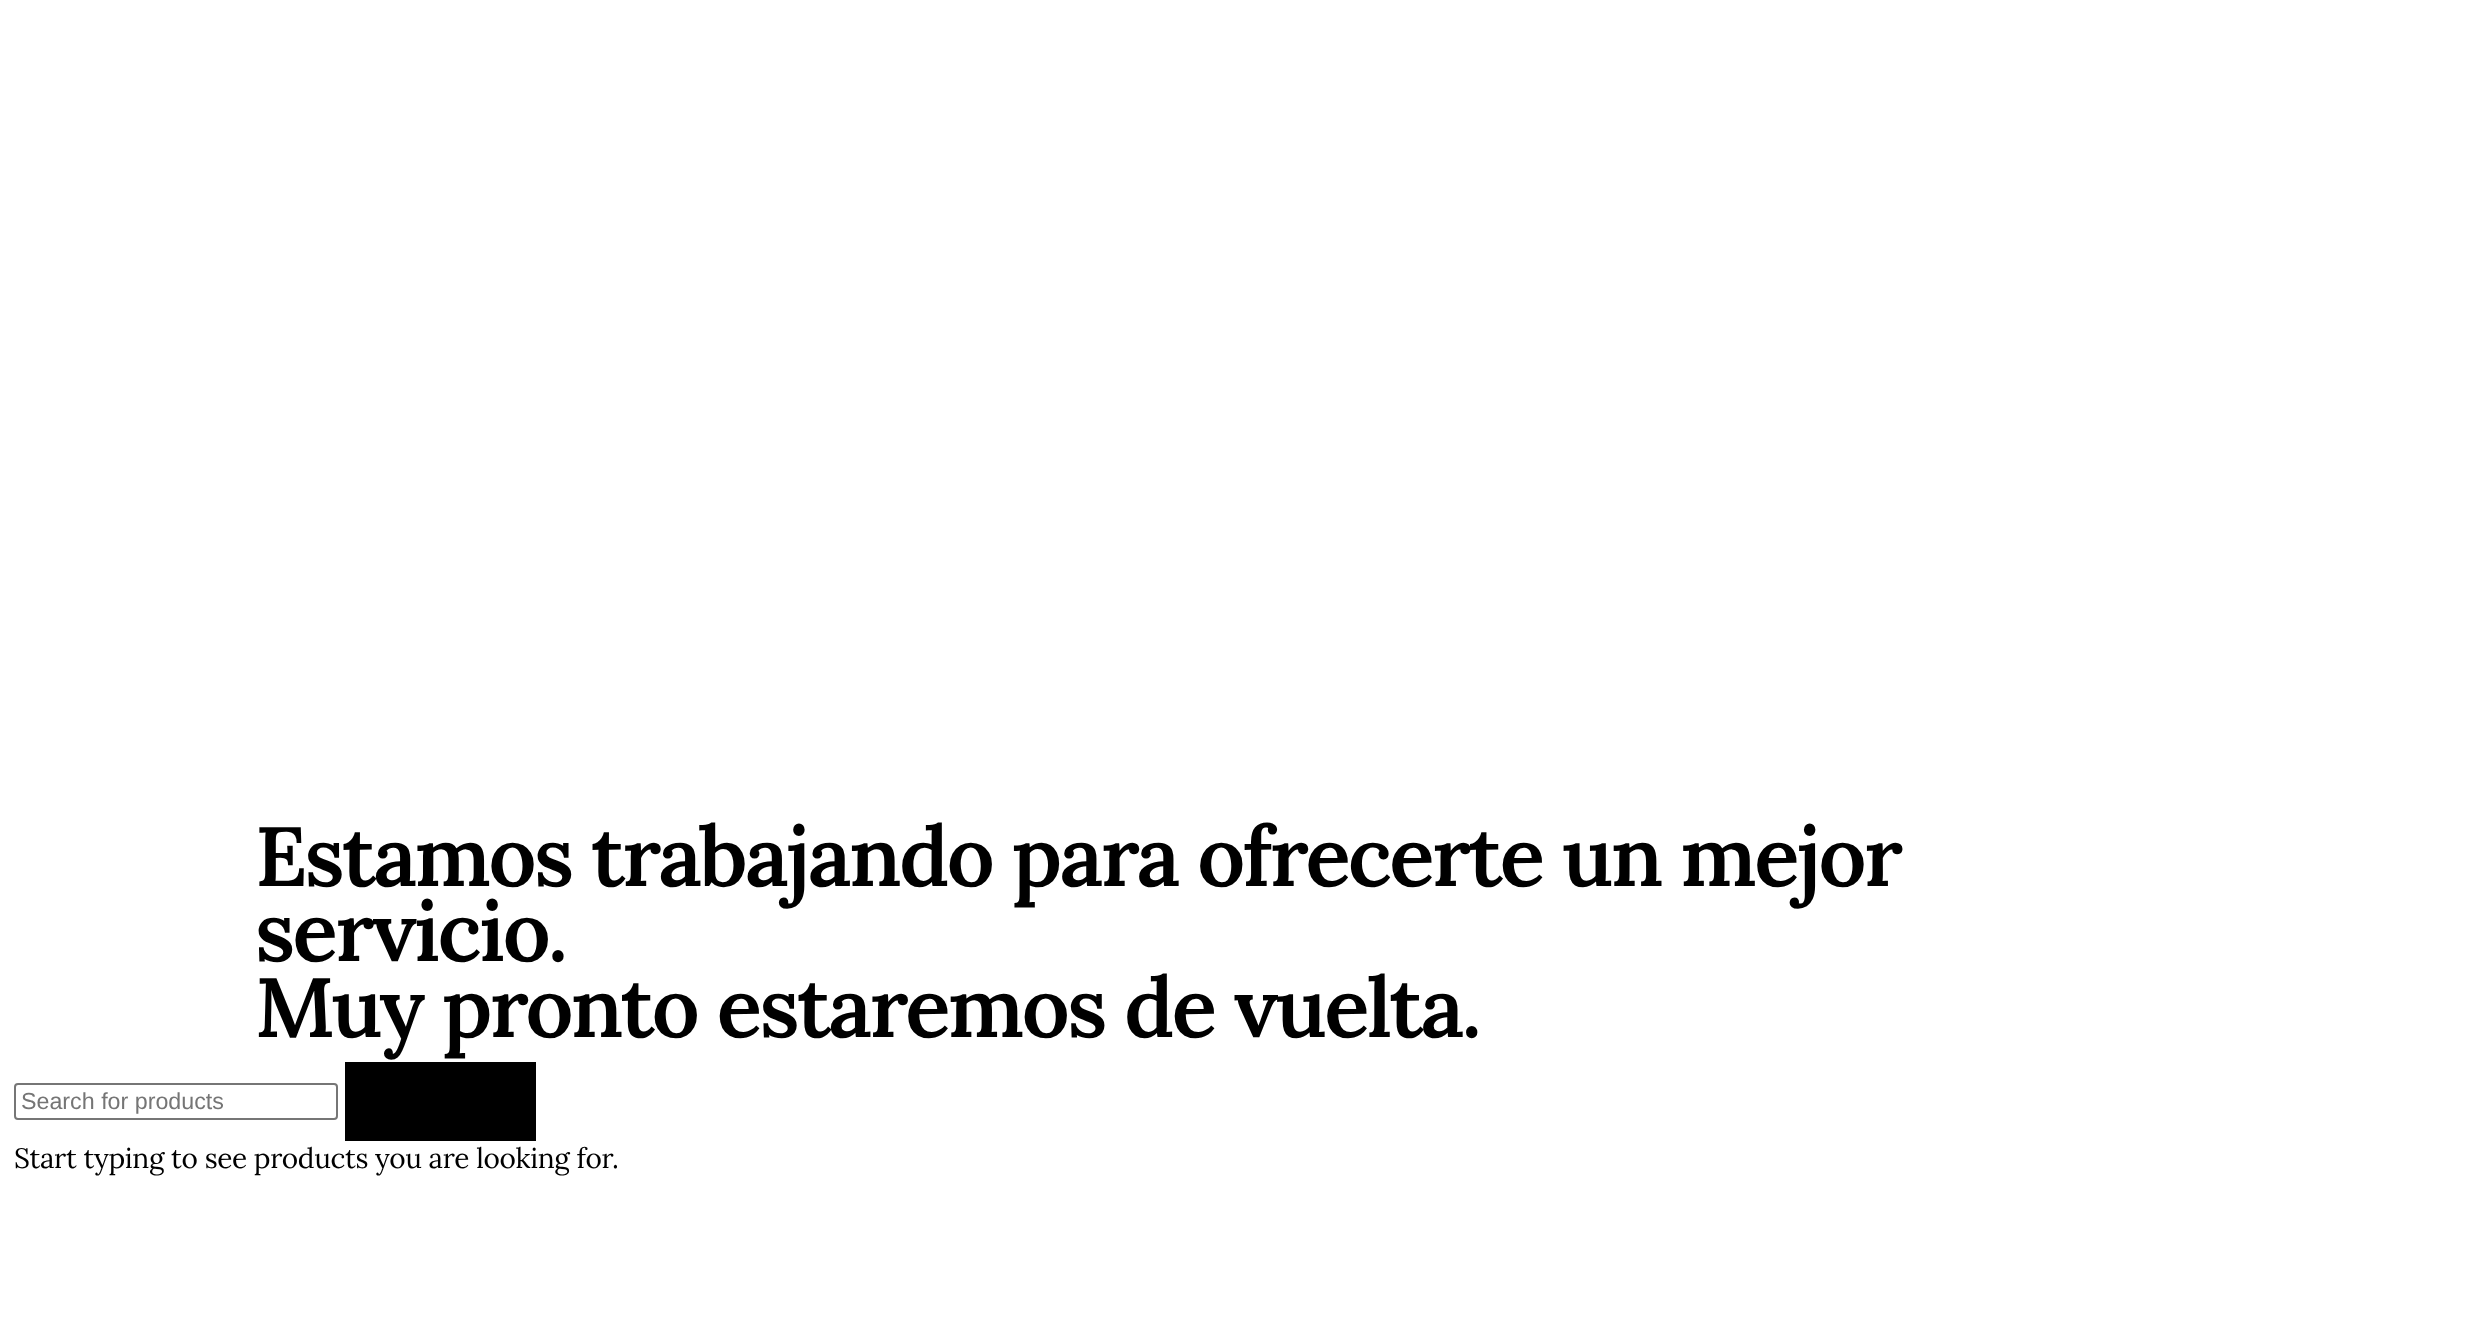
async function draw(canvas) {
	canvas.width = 2469;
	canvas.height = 1325;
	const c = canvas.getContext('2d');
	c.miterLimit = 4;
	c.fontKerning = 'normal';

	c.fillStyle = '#fff';
	c.fillRect(0, 0, 2469, 1325);
	c.letterSpacing = '-2.6px';
	c.font = '600 84px Lora';
	c.fillStyle = '#000';
	for (const [text, x, y] of [
		['Estamos trabajando para ofrecerte un mejor', 255, 886],
		['servicio.', 255, 961],
		['Muy pronto estaremos de vuelta.', 255, 1037],
	]) {
		c.fillText(text, x, y);
	}
	c.beginPath();
	c.roundRect(15, 1084, 322, 35, 3);
	c.strokeStyle = '#767676';
	c.lineWidth = 2;
	c.stroke();
	c.letterSpacing = '0px';
	c.font = '23.25px Liberation Sans';
	c.fillStyle = '#757575';
	c.fillText('Search for products', 21, 1109);
	c.fillStyle = '#000';
	c.fillRect(345, 1062, 191, 79);
	c.letterSpacing = '-0.35px';
	c.font = '28px Lora';
	c.fillText('Start typing to see products you are looking for.', 14, 1168);
}

draw(document.querySelector('canvas'));
